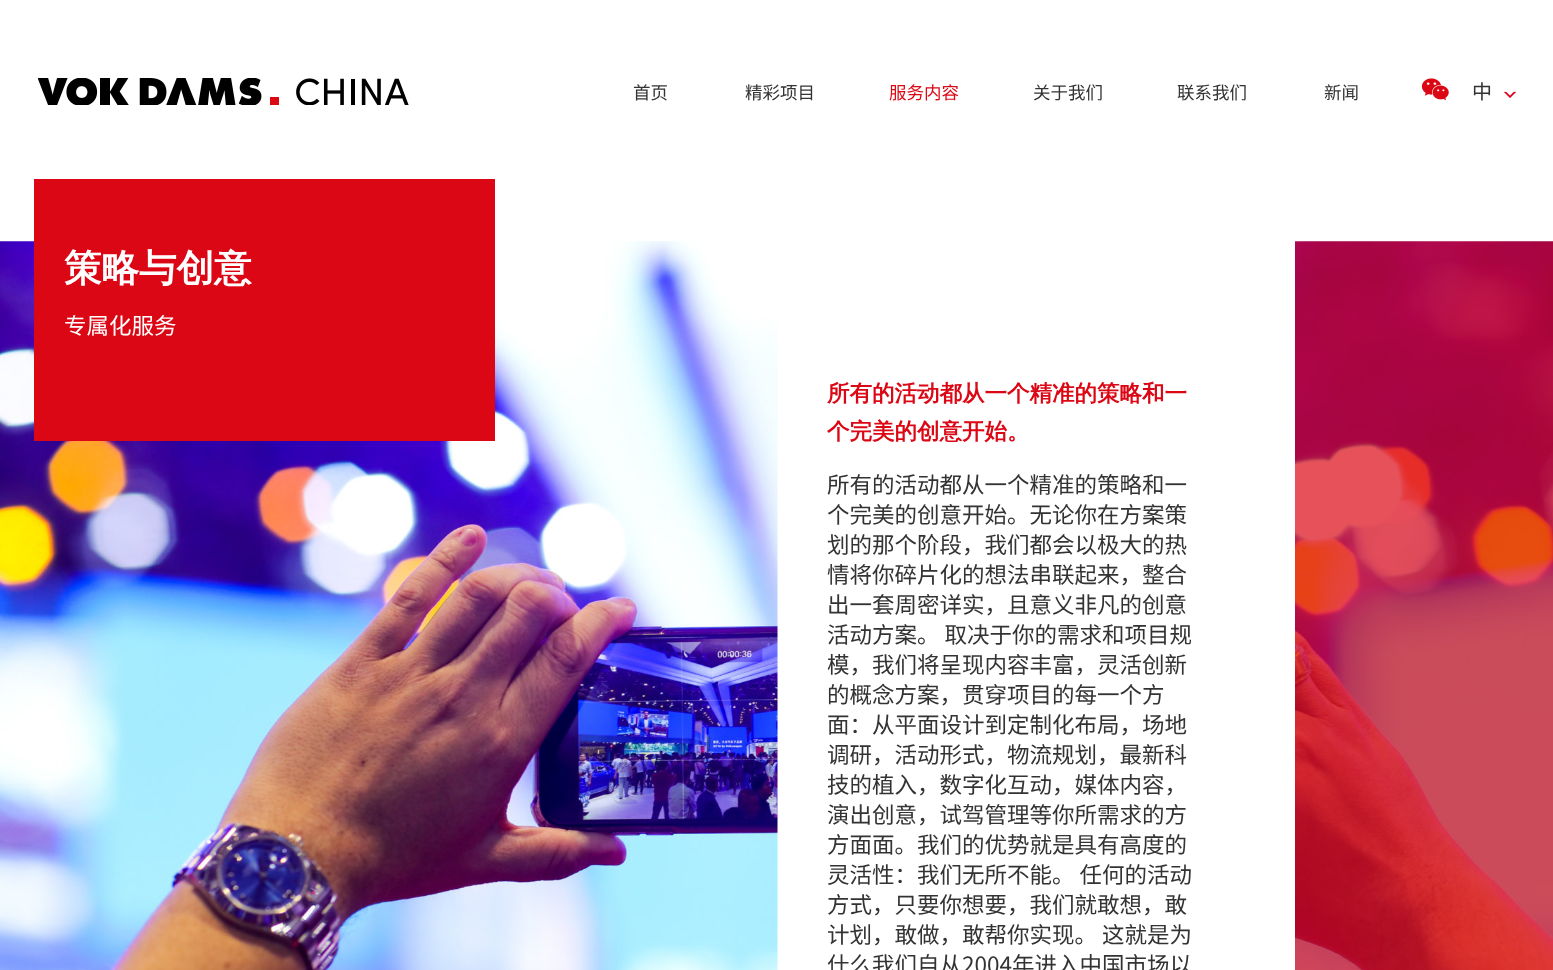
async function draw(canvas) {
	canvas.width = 1553;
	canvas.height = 970;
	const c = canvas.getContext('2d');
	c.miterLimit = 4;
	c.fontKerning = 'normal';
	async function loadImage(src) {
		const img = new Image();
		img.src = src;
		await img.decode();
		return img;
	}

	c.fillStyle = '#fff';
	c.fillRect(0, 0, 1553, 970);
	c.drawImage(await loadImage('img1.png'), 38, 78, 371, 27);
	c.font = '17.5px Noto Sans SC';
	c.fillStyle = '#333';
	c.fillText('首页', 633, 99);
	c.fillText('精彩项目', 745, 99);
	c.fillStyle = '#dc0714';
	c.fillText('服务内容', 889, 99);
	c.fillStyle = '#333';
	for (const [text, x, y] of [
		['关于我们', 1033, 99],
		['联系我们', 1177, 99],
		['新闻', 1324, 99],
	]) {
		c.fillText(text, x, y);
	}
	c.drawImage(await loadImage('img2.png'), 1421, 78, 28, 23);
	c.font = '20px Noto Sans SC';
	c.fillText('中', 1472, 99);
	c.drawImage(await loadImage('img3.png'), 1504, 91, 12, 7);
	c.drawImage(await loadImage('img4.png'), 0, 241, 778, 729);
	c.fillStyle = '#dc0714';
	c.fillRect(34, 179, 461, 262);
	c.font = 'bold 37.5px WenQuanYi Zen Hei';
	c.fillStyle = '#fff';
	c.fillText('策略与创意', 64, 281);
	c.font = '22.5px Noto Sans SC';
	c.fillText('专属化服务', 64, 334);
	c.font = 'bold 22.5px WenQuanYi Zen Hei';
	c.fillStyle = '#dc0714';
	c.fillText('所有的活动都从一个精准的策略和一', 827, 401);
	c.fillText('个完美的创意开始。', 827, 439);
	c.font = '22.5px Noto Sans SC';
	c.fillStyle = '#333';
	for (const [text, x, y] of [
		['所有的活动都从一个精准的策略和一', 827, 493],
		['个完美的创意开始。无论你在方案策', 827, 523],
		['划的那个阶段，我们都会以极大的热', 827, 553],
		['情将你碎片化的想法串联起来，整合', 827, 583],
		['出一套周密详实，且意义非凡的创意', 827, 613],
		['活动方案。 取决于你的需求和项目规', 827, 643],
		['模，我们将呈现内容丰富，灵活创新', 827, 673],
		['的概念方案，贯穿项目的每一个方', 827, 703],
		['面：从平面设计到定制化布局，场地', 827, 733],
		['调研，活动形式，物流规划，最新科', 827, 763],
		['技的植入，数字化互动，媒体内容，', 827, 793],
		['演出创意，试驾管理等你所需求的方', 827, 823],
		['方面面。我们的优势就是具有高度的', 827, 853],
		['灵活性：我们无所不能。 任何的活动', 827, 883],
		['方式，只要你想要，我们就敢想，敢', 827, 913],
		['计划，敢做，敢帮你实现。 这就是为', 827, 943],
		['什么我们自从2004年进入中国市场以', 827, 973],
	]) {
		c.fillText(text, x, y);
	}
	c.drawImage(await loadImage('img5.png'), 1295, 241, 258, 729);
}

draw(document.querySelector('canvas'));
